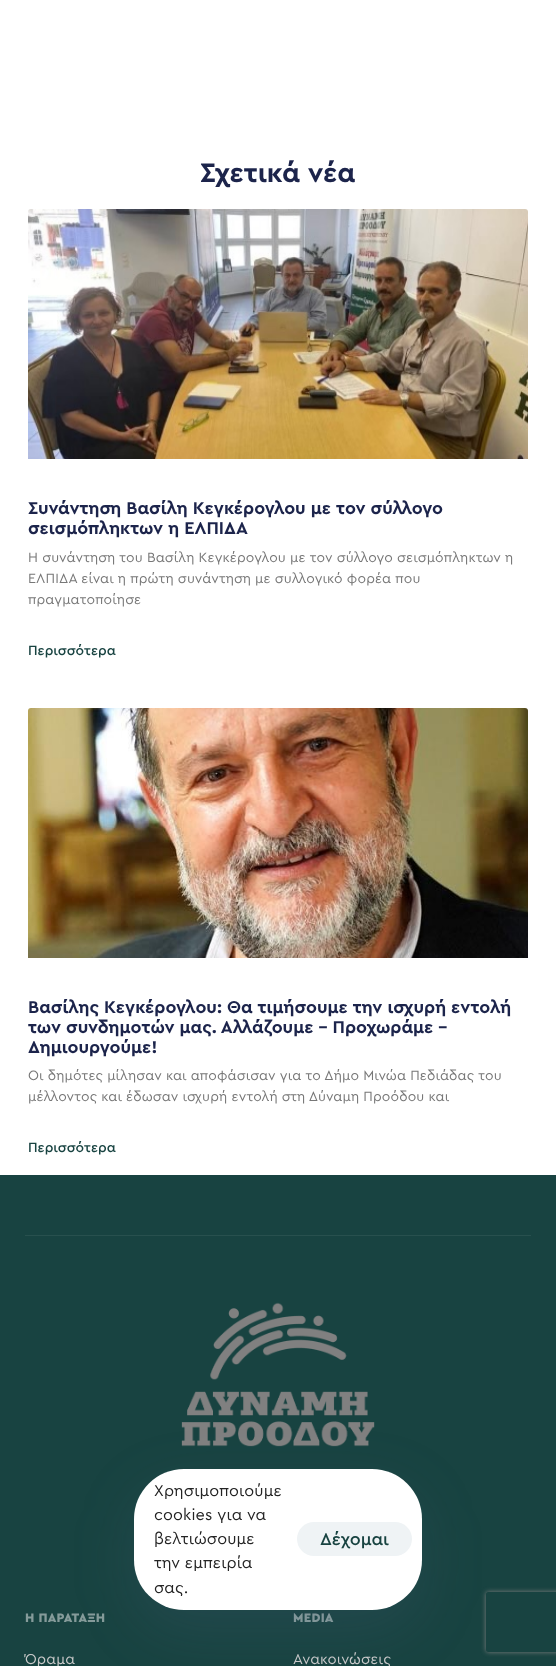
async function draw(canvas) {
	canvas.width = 556;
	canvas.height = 1666;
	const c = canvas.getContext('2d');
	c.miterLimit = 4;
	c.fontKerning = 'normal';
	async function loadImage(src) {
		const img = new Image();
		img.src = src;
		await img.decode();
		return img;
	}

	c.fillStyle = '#fff';
	c.fillRect(0, 0, 556, 1666);
	c.font = 'bold 28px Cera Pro';
	c.fillStyle = '#1c244b';
	c.fillText('Σχετικά νέα', 200, 182);
	c.drawImage(await loadImage('img1.png'), 28, 209, 500, 250);
	c.font = 'bold 18px Cera Pro';
	c.fillText('Συνάντηση Βασίλη Κεγκέρογλου με τον σύλλογο', 28, 514);
	c.fillText('σεισμόπληκτων η ΕΛΠΙΔΑ', 28, 534);
	c.letterSpacing = '0.15px';
	c.font = '14px Cera Pro';
	c.fillStyle = '#777';
	for (const [text, x, y] of [
		['Η συνάντηση του Βασίλη Κεγκέρογλου με τον σύλλογο σεισμόπληκτων η', 28, 562],
		['ΕΛΠΙΔΑ είναι η πρώτη συνάντηση με συλλογικό φορέα που', 28, 583],
		['πραγματοποίησε', 28, 604],
	]) {
		c.fillText(text, x, y);
	}
	c.letterSpacing = '0px';
	c.font = '500 14px Cera Pro';
	c.fillStyle = '#184341';
	c.fillText('Περισσότερα', 28, 655);
	c.drawImage(await loadImage('img2.png'), 28, 708, 500, 250);
	c.font = 'bold 18px Cera Pro';
	c.fillStyle = '#1c244b';
	for (const [text, x, y] of [
		['Βασίλης Κεγκέρογλου: Θα τιμήσουμε την ισχυρή εντολή', 28, 1013],
		['των συνδημοτών μας. Αλλάζουμε – Προχωράμε –', 28, 1033],
		['Δημιουργούμε!', 28, 1053],
	]) {
		c.fillText(text, x, y);
	}
	c.letterSpacing = '0.15px';
	c.font = '14px Cera Pro';
	c.fillStyle = '#777';
	c.fillText('Οι δημότες μίλησαν και αποφάσισαν για το Δήμο Μινώα Πεδιάδας του', 28, 1080);
	c.fillText('μέλλοντος και έδωσαν ισχυρή εντολή στη Δύναμη Προόδου και', 28, 1101);
	c.letterSpacing = '0px';
	c.font = '500 14px Cera Pro';
	c.fillStyle = '#184341';
	c.fillText('Περισσότερα', 28, 1152);
	c.fillRect(0, 1175, 556, 491);
	c.fillStyle = '#28504e';
	c.fillRect(25, 1235, 506, 1);
	c.drawImage(await loadImage('img3.png'), 181, 1302, 194, 145);
	c.letterSpacing = '0.25px';
	c.font = '900 13px Cera Pro';
	c.fillStyle = '#859b9a';
	c.fillText('Η ΠΑΡΑΤΑΞΗ', 25, 1622);
	c.letterSpacing = '0.15px';
	c.font = '15px Cera Pro';
	c.fillStyle = '#cbcbcb';
	c.fillText('Όραμα', 25, 1664);
	c.letterSpacing = '0.25px';
	c.font = '900 13px Cera Pro';
	c.fillStyle = '#859b9a';
	c.fillText('MEDIA', 293, 1622);
	c.letterSpacing = '0.15px';
	c.font = '15px Cera Pro';
	c.fillStyle = '#cbcbcb';
	c.fillText('Ανακοινώσεις', 293, 1664);
	c.fillStyle = '#5c6b9526';
	c.filter = 'blur(30px)';
	c.beginPath();
	c.roundRect(134, 1489, 288, 141, 50);
	c.fill();
	c.filter = 'none';
	c.fillStyle = '#fff';
	c.beginPath();
	c.roundRect(134, 1469, 288, 141, 50);
	c.fill();
	c.font = '16.25px Cera Pro';
	c.fillStyle = '#242424';
	for (const [text, x, y] of [
		['Χρησιμοποιούμε', 154, 1496],
		['cookies για να', 154, 1520],
		['βελτιώσουμε', 154, 1544],
		['την εμπειρία', 154, 1568],
		['σας.', 154, 1593],
	]) {
		c.fillText(text, x, y);
	}
	c.fillStyle = '#eff3f5';
	c.beginPath();
	c.roundRect(297, 1522, 115, 34, 17);
	c.fill();
	c.letterSpacing = '0px';
	c.font = '500 18px Cera Pro';
	c.fillStyle = '#184341';
	c.fillText('Δέχομαι', 320, 1545);
	c.save();
	c.beginPath();
	c.moveTo(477, 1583);
	c.lineTo(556, 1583);
	c.lineTo(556, 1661);
	c.lineTo(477, 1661);
	c.closePath();
	c.moveTo(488, 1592);
	c.lineTo(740, 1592);
	c.bezierCurveTo(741, 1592, 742, 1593, 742, 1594);
	c.lineTo(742, 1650);
	c.bezierCurveTo(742, 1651, 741, 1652, 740, 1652);
	c.lineTo(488, 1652);
	c.bezierCurveTo(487, 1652, 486, 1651, 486, 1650);
	c.lineTo(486, 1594);
	c.bezierCurveTo(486, 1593, 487, 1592, 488, 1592);
	c.closePath();
	c.clip('evenodd');
	c.fillStyle = '#808080';
	c.filter = 'blur(2.5px)';
	c.beginPath();
	c.roundRect(486, 1592, 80, 60, 2);
	c.fill();
	c.filter = 'none';
	c.restore();
}

draw(document.querySelector('canvas'));
